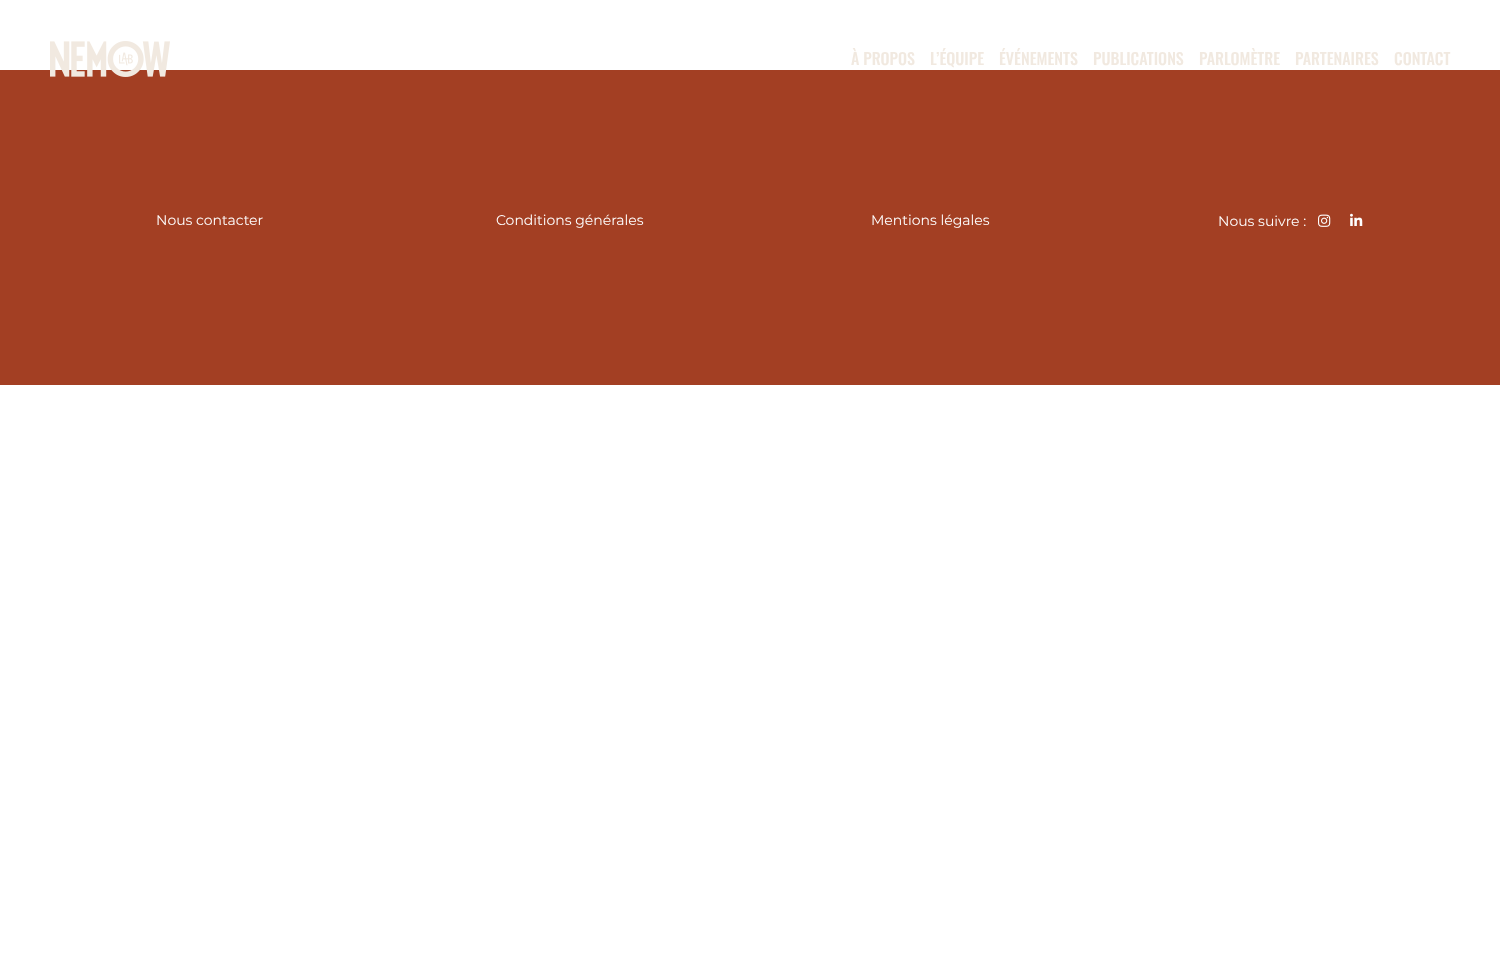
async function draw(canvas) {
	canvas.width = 1500;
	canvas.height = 972;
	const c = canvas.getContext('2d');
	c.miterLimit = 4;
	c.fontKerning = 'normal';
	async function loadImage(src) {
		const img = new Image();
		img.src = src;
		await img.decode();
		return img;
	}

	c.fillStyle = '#fff';
	c.fillRect(0, 0, 1500, 972);
	c.fillStyle = '#a33f23';
	c.fillRect(0, 70, 1500, 315);
	c.drawImage(await loadImage('img1.png'), 50, 41, 120, 36);
	c.font = '500 16px Oswald';
	c.fillStyle = '#f1e9e0';
	for (const [text, x, y] of [
		['À PROPOS', 851, 65],
		['L’ÉQUIPE', 930, 65],
		['ÉVÉNEMENTS', 999, 65],
		['PUBLICATIONS', 1093, 65],
		['PARLOMÈTRE', 1199, 65],
		['PARTENAIRES', 1295, 65],
		['CONTACT', 1394, 65],
	]) {
		c.fillText(text, x, y);
	}
	c.font = '14px Montserrat';
	c.fillStyle = '#fff';
	for (const [text, x, y] of [
		['Nous contacter', 156, 225],
		['Conditions générales', 496, 225],
		['Mentions légales', 871, 225],
		['Nous suivre :', 1218, 226],
	]) {
		c.fillText(text, x, y);
	}
	c.drawImage(await loadImage('img2.png'), 1318, 214, 13, 13);
	c.drawImage(await loadImage('img3.png'), 1350, 213, 13, 13);
}

draw(document.querySelector('canvas'));
